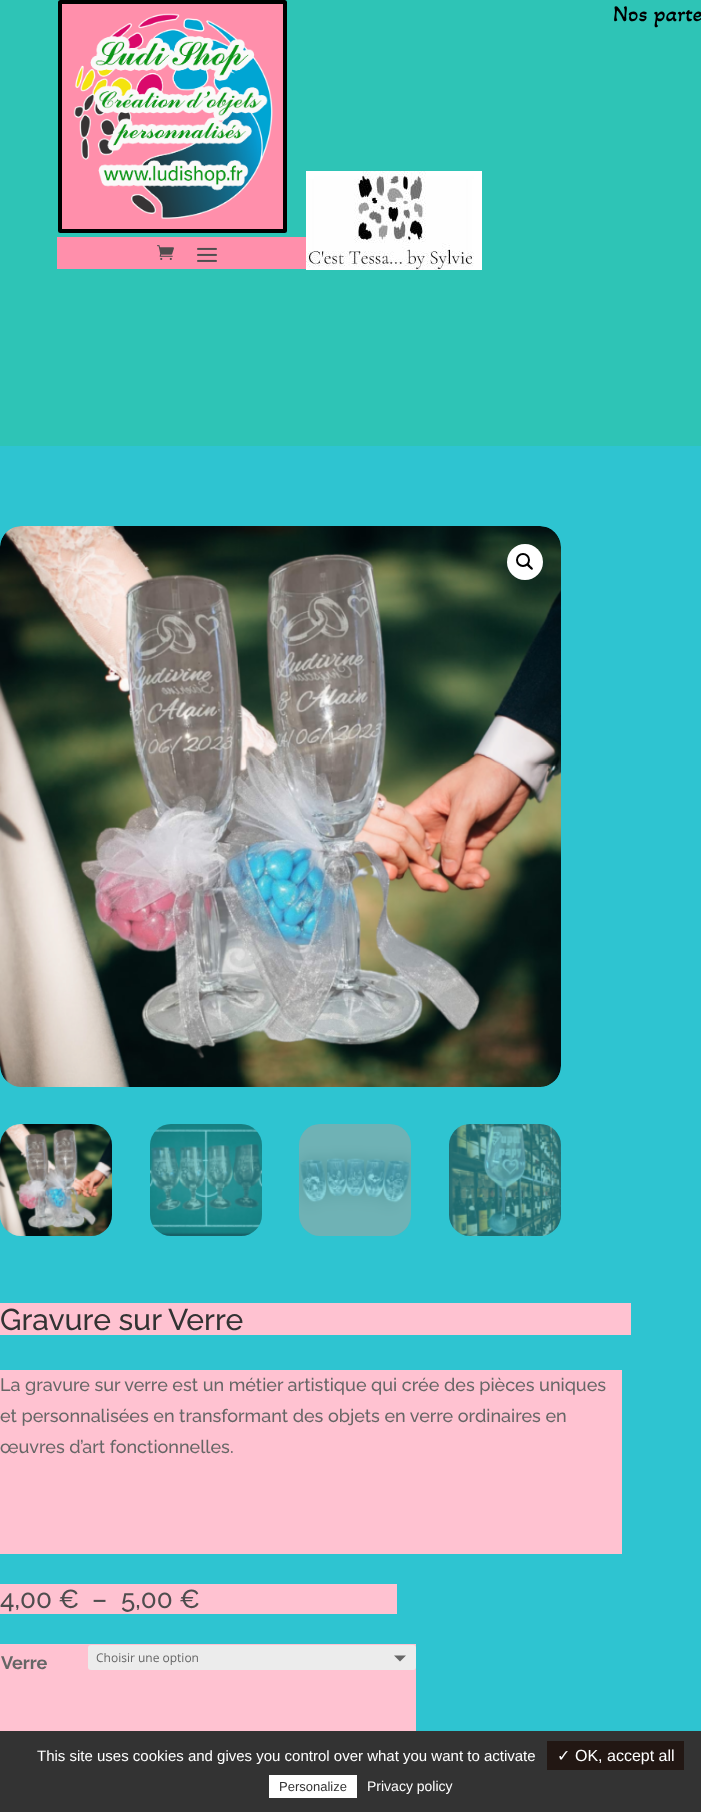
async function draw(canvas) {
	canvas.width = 701;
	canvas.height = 1812;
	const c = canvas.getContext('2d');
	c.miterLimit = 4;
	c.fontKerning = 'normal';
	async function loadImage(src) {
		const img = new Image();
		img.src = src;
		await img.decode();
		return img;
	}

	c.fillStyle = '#2ec4d1';
	c.fillRect(0, 0, 701, 1812);
	c.fillStyle = '#2ec4b6';
	c.fillRect(0, 0, 701, 446);
	c.fillStyle = '#ff8fab';
	c.beginPath();
	c.roundRect(60, 2, 225, 229, 0.5);
	c.fill();
	c.strokeStyle = '#000';
	c.lineWidth = 4;
	c.stroke();
	c.drawImage(await loadImage('img1.png'), 73, 13, 200, 207);
	c.drawImage(await loadImage('img2.png'), 306, 171, 176, 99);
	c.fillRect(57, 237, 249, 32);
	c.drawImage(await loadImage('img3.png'), 157, 245, 17, 15);
	c.drawImage(await loadImage('img4.png'), 197, 247, 20, 15);
	c.font = '23px Akaya Kanadaka';
	c.fillStyle = '#000';
	c.fillText('Nos parte', 613, 21);
	c.drawImage(await loadImage('img5.png'), 0, 526, 561, 561);
	c.fillStyle = '#fff';
	c.beginPath();
	c.arc(525, 562, 18, 0, 2 * Math.PI);
	c.fill();
	c.beginPath();
	c.arc(523, 560, 6, 0, 2 * Math.PI);
	c.lineWidth = 2;
	c.stroke();
	c.fillStyle = '#000';
	c.beginPath();
	c.moveTo(527, 564);
	c.bezierCurveTo(528, 562.5, 530, 565.5, 530.5, 566);
	c.bezierCurveTo(531, 566.5, 534, 568.5, 532.5, 569.5);
	c.bezierCurveTo(531.5, 570.5, 529.5, 568, 529, 567.5);
	c.bezierCurveTo(528.5, 567, 526, 565, 527, 564);
	c.closePath();
	c.fill();
	c.drawImage(await loadImage('img6.png'), 0, 1124, 112, 112);
	c.drawImage(await loadImage('img7.png'), 150, 1124, 112, 112);
	c.drawImage(await loadImage('img8.png'), 299, 1124, 112, 112);
	c.drawImage(await loadImage('img9.png'), 449, 1124, 112, 112);
	c.fillStyle = '#ffc2d1';
	c.fillRect(0, 1303, 631, 32);
	c.font = '500 30px Raleway';
	c.fillStyle = '#333';
	c.fillText('Gravure sur Verre', 0, 1330);
	c.fillStyle = '#ffc2d1';
	c.fillRect(0, 1370, 622, 184);
	c.font = '500 18px Raleway';
	c.fillStyle = '#666';
	for (const [text, x, y] of [
		['La gravure sur verre est un métier artistique qui crée des pièces uniques', 0, 1391],
		['et personnalisées en transformant des objets en verre ordinaires en', 0, 1422],
		['œuvres d’art fonctionnelles.', 0, 1453],
	]) {
		c.fillText(text, x, y);
	}
	c.fillStyle = '#ffc2d1';
	c.fillRect(0, 1584, 397, 30);
	c.font = '500 26px Raleway';
	c.fillStyle = '#4f4d4e';
	for (const [text, x, y] of [
		['4,00 €', 0, 1608],
		['–', 92, 1608],
		['5,00 €', 121, 1608],
	]) {
		c.fillText(text, x, y);
	}
	c.fillStyle = '#ffc2d1';
	c.fillRect(0, 1644, 416, 87);
	c.font = 'bold 18px Raleway';
	c.fillStyle = '#666';
	c.fillText('Verre', 1, 1669);
	c.fillStyle = '#ececec';
	c.beginPath();
	c.roundRect(88, 1645, 328, 25, 3);
	c.fill();
	c.font = '12px Open Sans';
	c.fillStyle = '#666';
	c.fillText('Choisir une option', 96, 1662);
	c.beginPath();
	c.moveTo(394, 1655.5);
	c.lineTo(406, 1655.5);
	c.lineTo(400, 1661.5);
	c.closePath();
	c.fill();
	c.fillStyle = '#333';
	c.fillRect(0, 1731, 701, 81);
	c.font = '15px Liberation Sans';
	c.fillStyle = '#fff';
	c.fillText('This site uses cookies and gives you control over what you want to activate', 37, 1761);
	c.fillStyle = '#221713';
	c.fillRect(547, 1741, 137, 29);
	c.font = '16px DejaVu Sans';
	c.fillStyle = '#fff';
	c.fillText('✓', 557, 1761);
	c.font = '16px Liberation Sans';
	c.fillText('OK, accept all', 575, 1761);
	c.fillRect(269, 1775, 88, 23);
	c.font = '13px Liberation Sans';
	c.fillStyle = '#333';
	c.fillText('Personalize', 279, 1791);
	c.font = '14px Liberation Sans';
	c.fillStyle = '#fff';
	c.fillText('Privacy policy', 367, 1791);
}

draw(document.querySelector('canvas'));
